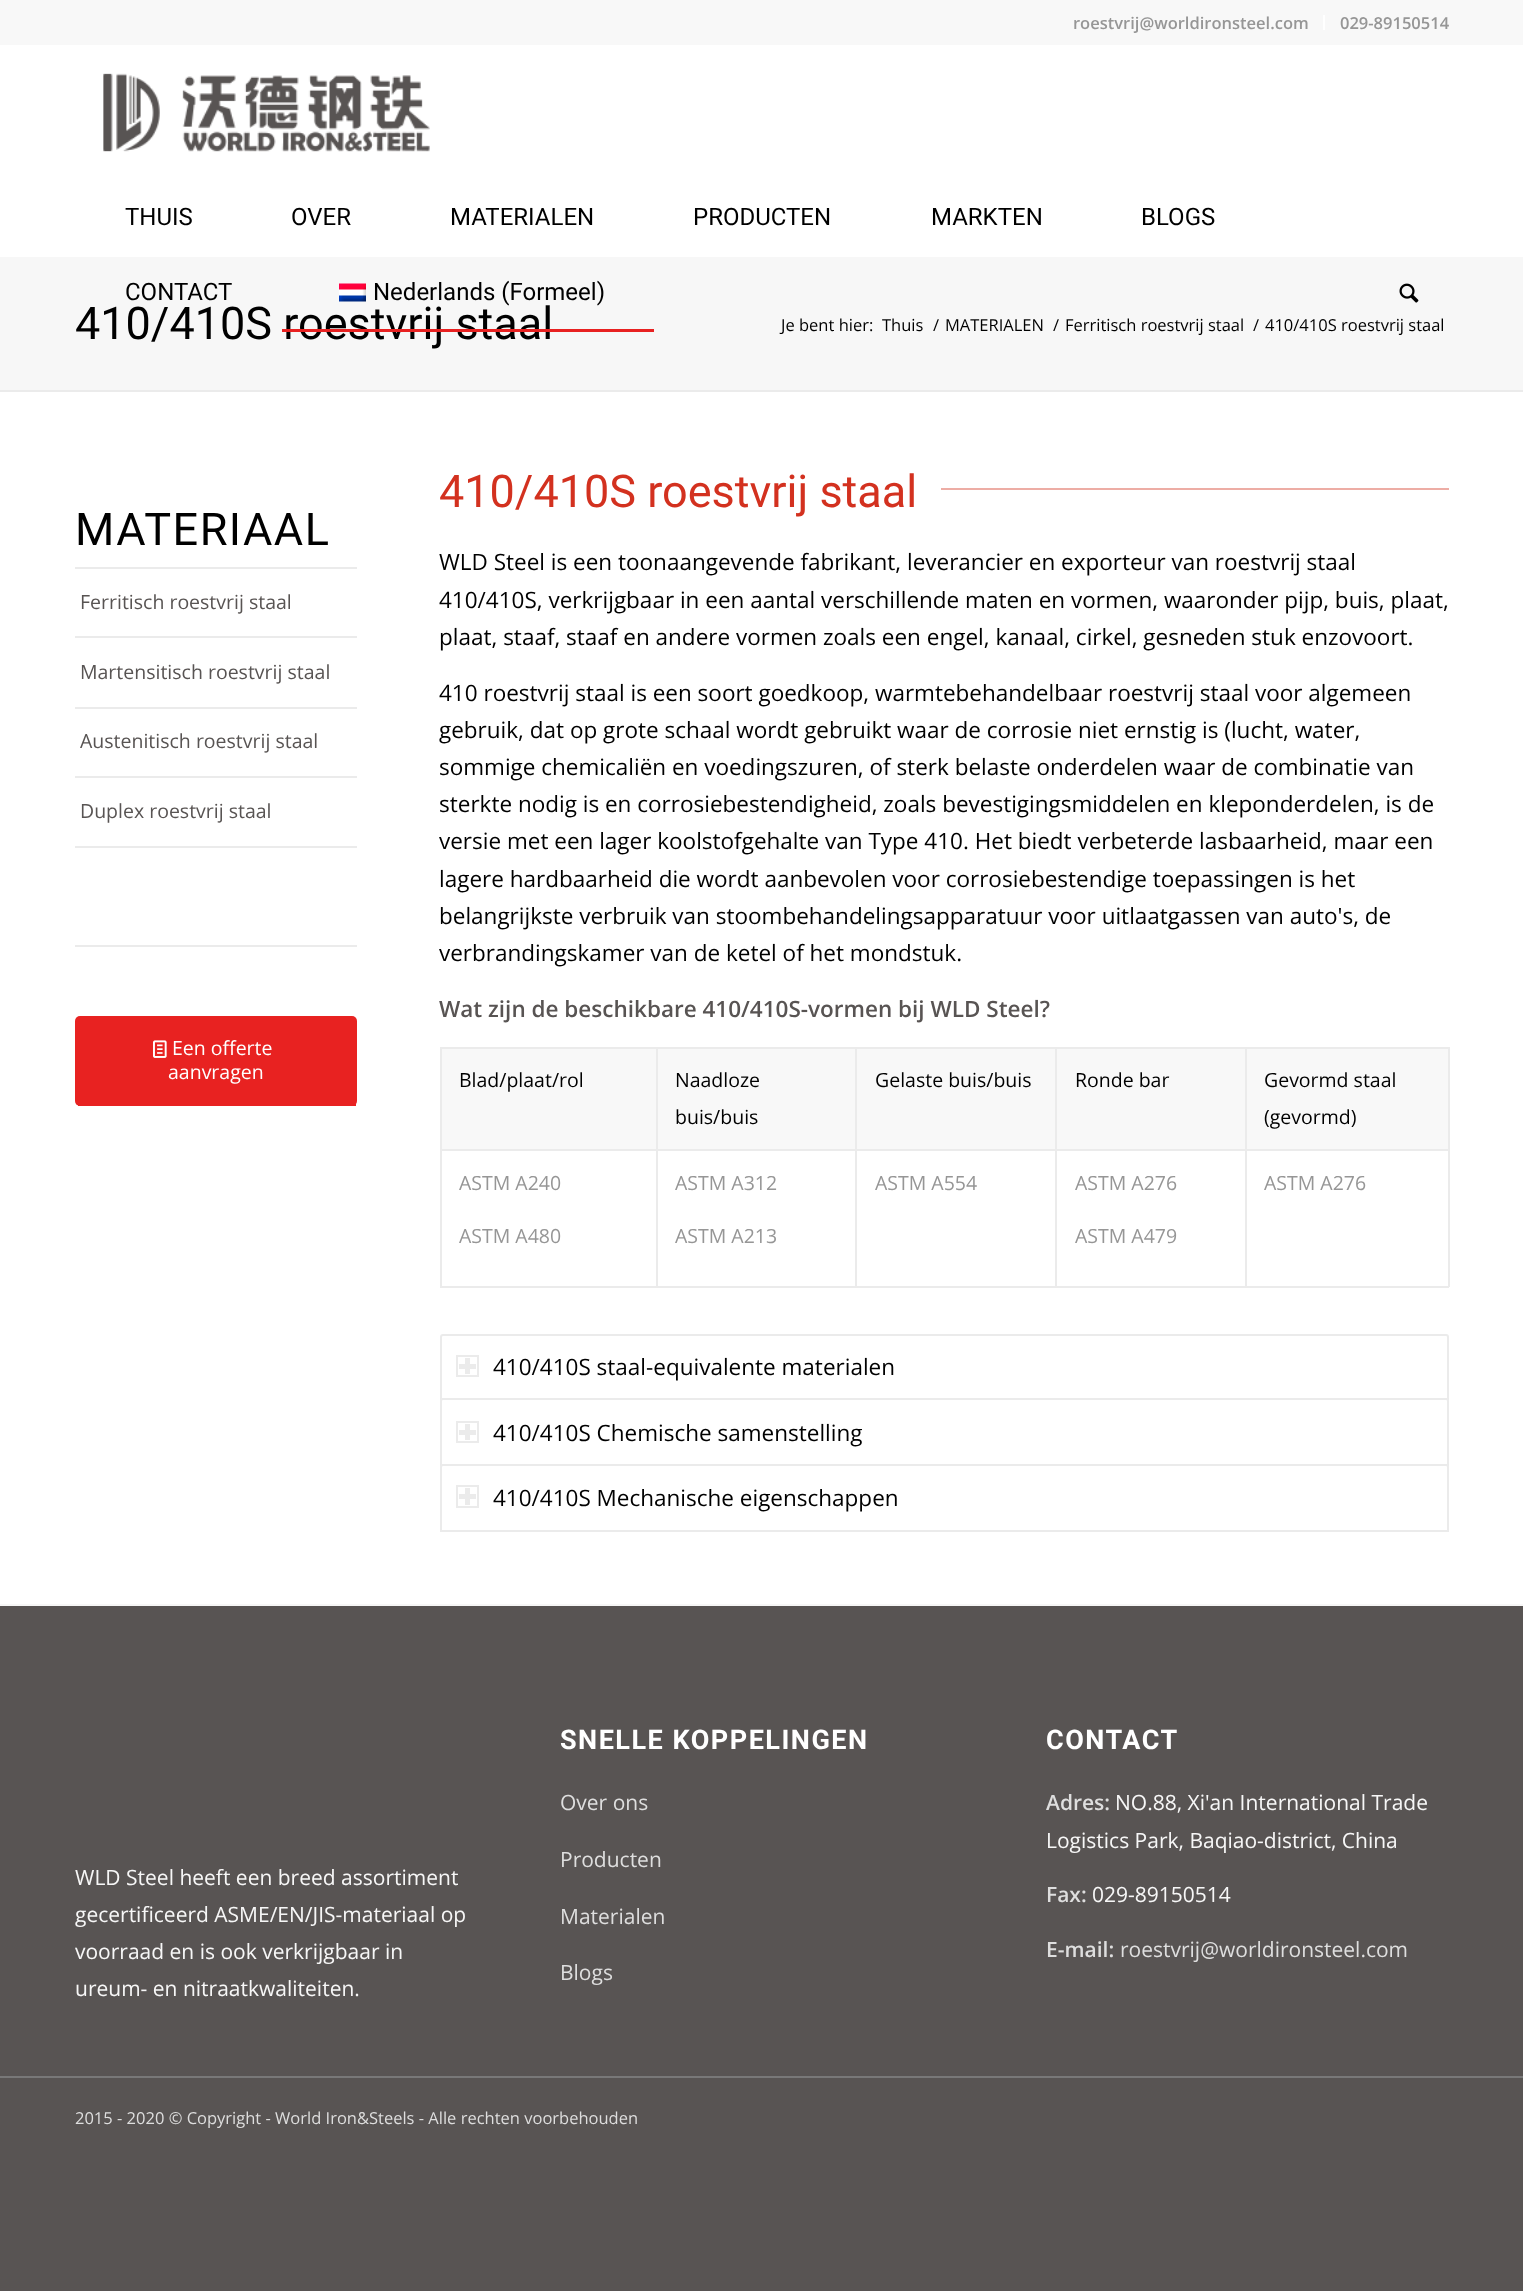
async function draw(canvas) {
	canvas.width = 1523;
	canvas.height = 2291;
	const c = canvas.getContext('2d');
	c.miterLimit = 4;
	c.fontKerning = 'normal';
	async function loadImage(src) {
		const img = new Image();
		img.src = src;
		await img.decode();
		return img;
	}

	c.fillStyle = '#585453';
	c.fillRect(0, 0, 1523, 2291);
	c.fillStyle = '#f8f8f8';
	c.fillRect(0, 0, 1523, 45);
	c.fillStyle = '#fff';
	c.fillRect(1323, 15, 2, 15);
	c.font = '600 16.5px Open Sans';
	c.fillStyle = '#969696';
	c.fillText('roestvrij@worldironsteel.com', 1073, 29);
	c.fillText('029-89150514', 1340, 29);
	c.fillStyle = '#fff';
	c.fillRect(0, 45, 1523, 212);
	c.drawImage(await loadImage('img1.png'), 103, 73, 327, 79);
	c.font = '24px Roboto';
	c.fillStyle = '#000';
	for (const [text, x, y] of [
		['THUIS', 125, 225],
		['OVER', 291, 225],
		['MATERIALEN', 450, 225],
		['PRODUCTEN', 693, 225],
		['MARKTEN', 931, 225],
		['BLOGS', 1141, 225],
	]) {
		c.fillText(text, x, y);
	}
	c.fillStyle = '#f7f7f7';
	c.fillRect(0, 257, 1523, 133);
	c.fillStyle = '#000';
	c.fillText('CONTACT', 125, 300);
	c.drawImage(await loadImage('img2.png'), 339, 283, 27, 19);
	c.fillText('Nederlands (Formeel)', 373, 300);
	c.font = '45px Roboto';
	c.fillText('410/410S roestvrij staal', 75, 339);
	c.fillStyle = '#e82121';
	c.fillRect(282, 329, 372, 3);
	c.drawImage(await loadImage('img3.png'), 1399, 283, 20, 20);
	c.fillStyle = '#fff';
	c.fillRect(0, 392, 1523, 1212);
	c.font = '16.5px Open Sans';
	c.fillStyle = '#000';
	for (const [text, x, y] of [
		['Je bent hier:', 781, 331],
		['Thuis', 882, 331],
		['/', 933, 331],
		['MATERIALEN', 945, 331],
		['/', 1053, 331],
		['Ferritisch roestvrij staal', 1065, 331],
		['/', 1253, 331],
		['410/410S roestvrij staal', 1265, 331],
	]) {
		c.fillText(text, x, y);
	}
	c.fillStyle = '#ebebeb';
	c.fillRect(0, 390, 1523, 2);
	c.letterSpacing = '1.5px';
	c.font = '45px Roboto';
	c.fillStyle = '#000';
	c.fillText('MATERIAAL', 75, 545);
	c.fillStyle = '#ebebeb';
	c.fillRect(75, 567, 282, 2);
	c.fillRect(75, 636, 282, 2);
	c.letterSpacing = '0px';
	c.font = '19.5px Open Sans';
	c.fillStyle = '#585453';
	c.fillText('Ferritisch roestvrij staal', 80, 609);
	c.fillStyle = '#ebebeb';
	c.fillRect(75, 707, 282, 2);
	c.fillStyle = '#585453';
	c.fillText('Martensitisch roestvrij staal', 80, 679);
	c.fillStyle = '#ebebeb';
	c.fillRect(75, 776, 282, 2);
	c.fillStyle = '#585453';
	c.fillText('Austenitisch roestvrij staal', 80, 748);
	c.fillStyle = '#ebebeb';
	c.fillRect(75, 846, 282, 2);
	c.fillStyle = '#585453';
	c.fillText('Duplex roestvrij staal', 80, 818);
	c.fillStyle = '#ebebeb';
	c.fillRect(75, 945, 282, 2);
	c.fillStyle = '#e82221';
	c.beginPath();
	c.roundRect(75, 1016, 282, 90, 5);
	c.fill();
	c.fillRect(78, 1104, 278, 2);
	c.drawImage(await loadImage('img4.png'), 153, 1040, 14, 18);
	c.fillStyle = '#fff';
	c.fillText('Een offerte', 172, 1055);
	c.fillText('aanvragen', 168, 1079);
	c.font = '45px Roboto';
	c.fillStyle = '#d3311f';
	c.fillText('410/410S roestvrij staal', 439, 507);
	c.fillStyle = '#edada5';
	c.fillRect(941, 488, 508, 2);
	c.font = '22.5px Open Sans';
	c.fillStyle = '#000';
	for (const [text, x, y] of [
		['WLD Steel is een toonaangevende fabrikant, leverancier en exporteur van roestvrij staal', 439, 570],
		['410/410S, verkrijgbaar in een aantal verschillende maten en vormen, waaronder pijp, buis, plaat,', 439, 608],
		['plaat, staaf, staaf en andere vormen zoals een engel, kanaal, cirkel, gesneden stuk enzovoort.', 439, 645],
		['410 roestvrij staal is een soort goedkoop, warmtebehandelbaar roestvrij staal voor algemeen', 439, 701],
		['gebruik, dat op grote schaal wordt gebruikt waar de corrosie niet ernstig is (lucht, water,', 439, 738],
		['sommige chemicaliën en voedingszuren, of sterk belaste onderdelen waar de combinatie van', 439, 775],
		['sterkte nodig is en corrosiebestendigheid, zoals bevestigingsmiddelen en kleponderdelen, is de', 439, 812],
		['versie met een lager koolstofgehalte van Type 410. Het biedt verbeterde lasbaarheid, maar een', 439, 849],
		['lagere hardbaarheid die wordt aanbevolen voor corrosiebestendige toepassingen is het', 439, 887],
		['belangrijkste verbruik van stoombehandelingsapparatuur voor uitlaatgassen van auto\'s, de', 439, 924],
		['verbrandingskamer van de ketel of het mondstuk.', 439, 961],
	]) {
		c.fillText(text, x, y);
	}
	c.font = '600 22.5px Open Sans';
	c.fillStyle = '#585453';
	c.fillText('Wat zijn de beschikbare 410/410S-vormen bij WLD Steel?', 439, 1017);
	for (const [x, y, w, h, color] of [
		[442, 1049, 1006, 100, '#f8f8f8'],
		[440, 1047, 1009, 2, '#ebebeb'],
		[1448, 1149, 2, 138, '#ebebeb'],
		[1448, 1047, 2, 104, '#ebebeb'],
		[1245, 1286, 204, 2, '#ebebeb'],
		[1245, 1149, 2, 138, '#ebebeb'],
		[1245, 1149, 204, 2, '#ebebeb'],
		[1245, 1047, 2, 104, '#ebebeb'],
		[1055, 1286, 192, 2, '#ebebeb'],
		[1055, 1149, 2, 138, '#ebebeb'],
		[1055, 1149, 192, 2, '#ebebeb'],
		[1055, 1047, 2, 104, '#ebebeb'],
		[855, 1286, 201, 2, '#ebebeb'],
		[855, 1149, 2, 138, '#ebebeb'],
		[855, 1149, 201, 2, '#ebebeb'],
		[855, 1047, 2, 104, '#ebebeb'],
		[656, 1286, 201, 2, '#ebebeb'],
		[656, 1149, 2, 138, '#ebebeb'],
		[656, 1149, 201, 2, '#ebebeb'],
		[656, 1047, 2, 104, '#ebebeb'],
		[440, 1286, 217, 2, '#ebebeb'],
		[440, 1149, 2, 138, '#ebebeb'],
		[440, 1149, 217, 2, '#ebebeb'],
		[440, 1047, 2, 104, '#ebebeb'],
	]) {
		c.fillStyle = color;
		c.fillRect(x, y, w, h);
	}
	c.font = '19.5px Open Sans';
	c.fillStyle = '#000';
	for (const [text, x, y] of [
		['Blad/plaat/rol', 459, 1087],
		['Naadloze', 675, 1087],
		['buis/buis', 675, 1124],
		['Gelaste buis/buis', 875, 1087],
		['Ronde bar', 1075, 1087],
		['Gevormd staal', 1264, 1087],
		['(gevormd)', 1264, 1124],
	]) {
		c.fillText(text, x, y);
	}
	c.fillStyle = '#969696';
	for (const [text, x, y] of [
		['ASTM A240', 459, 1190],
		['ASTM A480', 459, 1243],
		['ASTM A312', 675, 1190],
		['ASTM A213', 675, 1243],
		['ASTM A554', 875, 1190],
		['ASTM A276', 1075, 1190],
		['ASTM A479', 1075, 1243],
		['ASTM A276', 1264, 1190],
	]) {
		c.fillText(text, x, y);
	}
	c.beginPath();
	c.roundRect(441, 1335, 1007, 64, [2, 2, 0, 0]);
	c.strokeStyle = '#ebebeb';
	c.lineWidth = 2;
	c.stroke();
	c.strokeRect(457, 1356, 21, 20);
	c.fillStyle = '#ebebeb';
	c.fillRect(465, 1358, 5, 16);
	c.fillRect(459, 1364, 17, 5);
	c.font = '22.5px Open Sans';
	c.fillStyle = '#000';
	c.fillText('410/410S staal-equivalente materialen', 493, 1375);
	c.fillStyle = '#fff';
	c.beginPath();
	c.roundRect(441, 1399, 1007, 66, [2, 2, 0, 0]);
	c.fill();
	c.stroke();
	c.strokeRect(457, 1422, 21, 20);
	c.fillStyle = '#ebebeb';
	c.fillRect(465, 1424, 5, 16);
	c.fillRect(459, 1430, 17, 5);
	c.fillStyle = '#000';
	c.fillText('410/410S Chemische samenstelling', 493, 1441);
	c.fillStyle = '#fff';
	c.beginPath();
	c.roundRect(441, 1465, 1007, 66, [2, 2, 0, 0]);
	c.fill();
	c.stroke();
	c.strokeRect(457, 1486, 21, 21);
	c.fillStyle = '#ebebeb';
	c.fillRect(465, 1488, 5, 17);
	c.fillRect(459, 1494, 17, 5);
	c.fillStyle = '#000';
	c.fillText('410/410S Mechanische eigenschappen', 493, 1506);
	c.fillStyle = '#f7f7f7';
	c.fillRect(0, 1604, 1523, 2);
	c.font = '21px Open Sans';
	for (const [text, x, y] of [
		['WLD Steel heeft een breed assortiment', 75, 1885],
		['gecertificeerd ASME/EN/JIS-materiaal op', 75, 1922],
		['voorraad en is ook verkrijgbaar in', 75, 1959],
		['ureum- en nitraatkwaliteiten.', 75, 1996],
	]) {
		c.fillText(text, x, y);
	}
	c.letterSpacing = '1.5px';
	c.font = 'bold 27px Roboto';
	c.fillStyle = '#fff';
	c.fillText('SNELLE KOPPELINGEN', 560, 1749);
	c.letterSpacing = '0px';
	c.font = '21px Open Sans';
	c.fillStyle = '#dedede';
	for (const [text, x, y] of [
		['Over ons', 560, 1810],
		['Producten', 560, 1867],
		['Materialen', 560, 1924],
		['Blogs', 560, 1980],
	]) {
		c.fillText(text, x, y);
	}
	c.letterSpacing = '1.5px';
	c.font = 'bold 27px Roboto';
	c.fillStyle = '#fff';
	c.fillText('CONTACT', 1046, 1749);
	c.letterSpacing = '0px';
	c.font = '600 21px Open Sans';
	c.fillStyle = '#dedede';
	c.fillText('Adres:', 1046, 1810);
	c.font = '21px Open Sans';
	c.fillStyle = '#f7f7f7';
	c.fillText('NO.88, Xi\'an International Trade', 1115, 1810);
	c.fillText('Logistics Park, Baqiao-district, China', 1046, 1848);
	c.font = '600 21px Open Sans';
	c.fillStyle = '#dedede';
	c.fillText('Fax:', 1046, 1902);
	c.font = '21px Open Sans';
	c.fillStyle = '#f7f7f7';
	c.fillText('029-89150514', 1092, 1902);
	c.font = '600 21px Open Sans';
	c.fillStyle = '#dedede';
	c.fillText('E-mail:', 1046, 1957);
	c.font = '21px Open Sans';
	c.fillText('roestvrij@worldironsteel.com', 1120, 1957);
	c.fillStyle = '#787878';
	c.fillRect(0, 2076, 1523, 2);
	c.font = '16.5px Open Sans';
	c.fillStyle = '#dedede';
	c.fillText('2015 - 2020 © Copyright - World Iron&Steels - Alle rechten voorbehouden', 75, 2124);
}

draw(document.querySelector('canvas'));
